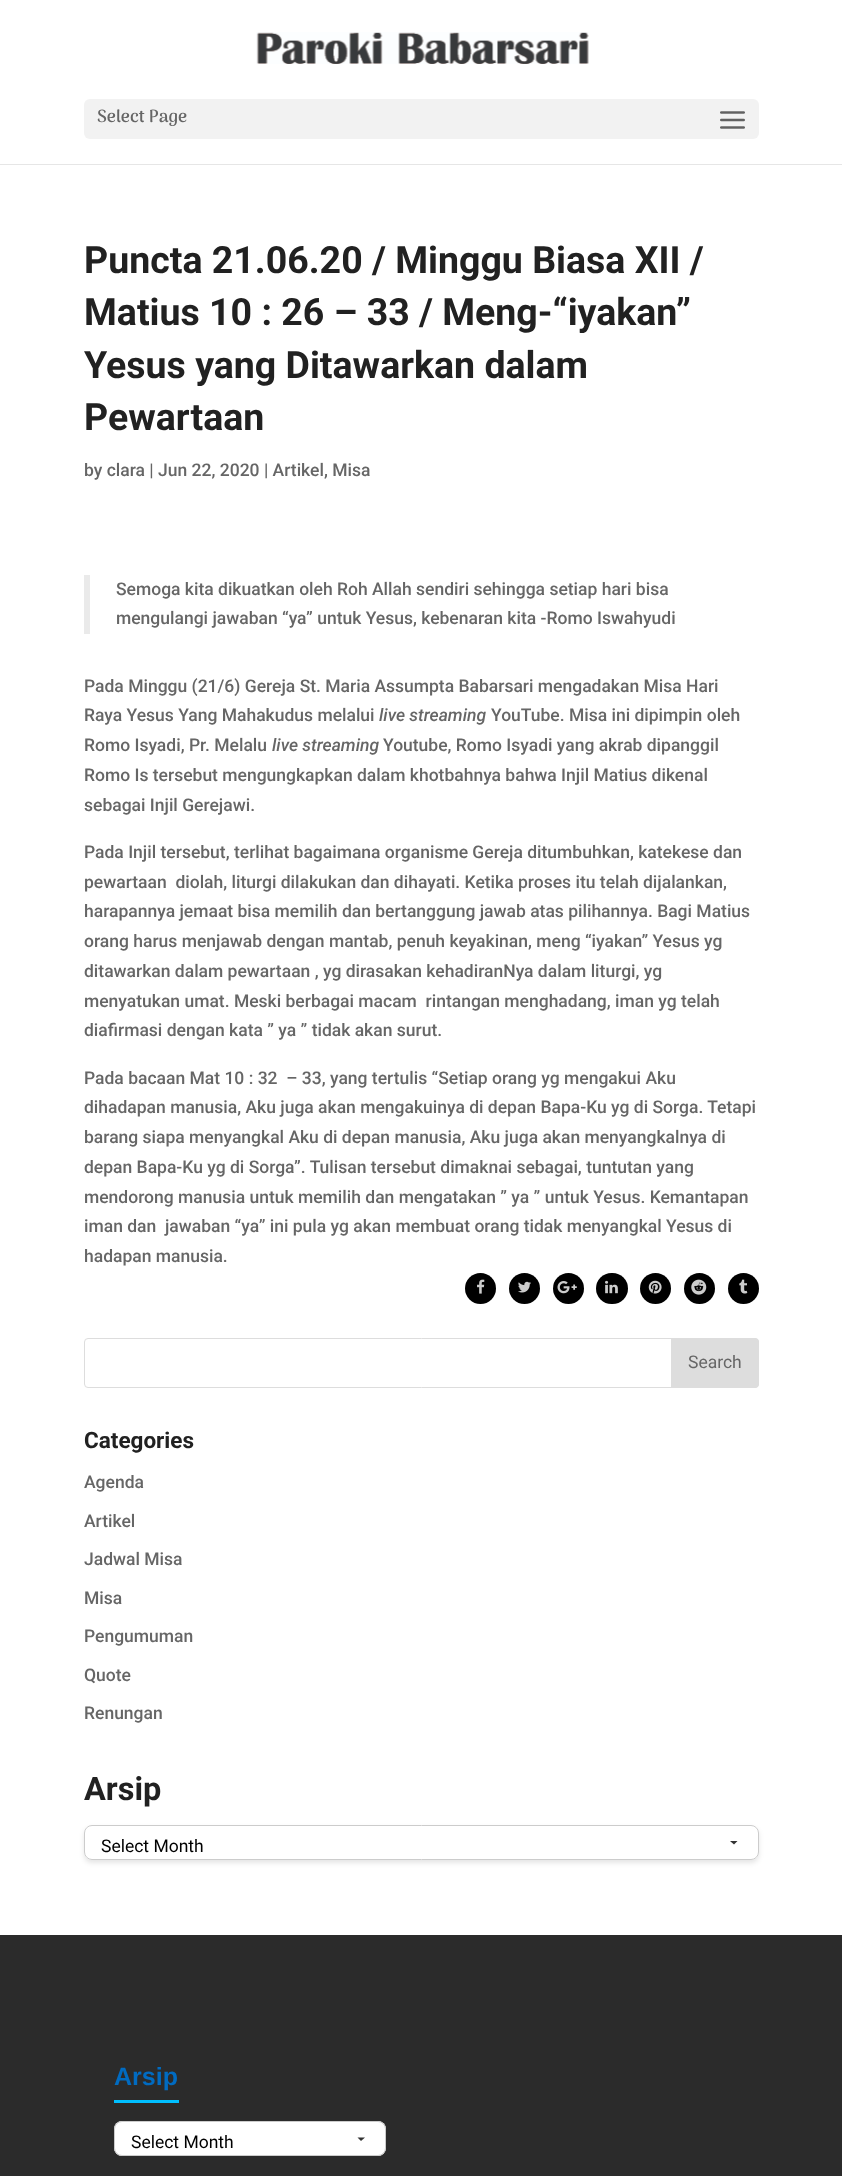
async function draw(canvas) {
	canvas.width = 842;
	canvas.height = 2176;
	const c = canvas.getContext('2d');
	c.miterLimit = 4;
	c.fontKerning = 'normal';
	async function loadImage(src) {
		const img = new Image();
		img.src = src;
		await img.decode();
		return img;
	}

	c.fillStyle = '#fff';
	c.fillRect(0, 0, 842, 2176);
	c.fillStyle = '#e6e6e6';
	c.beginPath();
	c.moveTo(0, 164);
	c.lineTo(0, 165);
	c.lineTo(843, 165);
	c.lineTo(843, 1);
	c.lineTo(842, 1);
	c.lineTo(842, 164);
	c.closePath();
	c.fill();
	c.drawImage(await loadImage('img1.png'), 256, 32, 333, 32);
	c.fillStyle = '#f2f2f2';
	c.beginPath();
	c.roundRect(84, 99, 675, 40, 6);
	c.fill();
	c.font = 'bold 17.5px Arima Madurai';
	c.fillStyle = '#666';
	c.fillText('Select Page', 97, 122);
	c.drawImage(await loadImage('img2.png'), 720, 111, 25, 18);
	c.font = 'bold 37.5px Roboto';
	c.fillStyle = '#212121';
	for (const [text, x, y] of [
		['Puncta 21.06.20 / Minggu Biasa XII /', 84, 273],
		['Matius 10 : 26 – 33 / Meng-“iyakan”', 84, 325],
		['Yesus yang Ditawarkan dalam', 84, 378],
		['Pewartaan', 84, 430],
	]) {
		c.fillText(text, x, y);
	}
	c.font = '500 17.5px Roboto';
	c.fillStyle = '#666';
	c.fillText('by clara | Jun 22, 2020 | Artikel, Misa', 84, 476);
	c.fillStyle = '#eaeaea';
	c.fillRect(84, 575, 6, 59);
	c.fillStyle = '#666';
	for (const [text, x, y] of [
		['Semoga kita dikuatkan oleh Roh Allah sendiri sehingga setiap hari bisa', 116, 595],
		['mengulangi jawaban “ya” untuk Yesus, kebenaran kita -Romo Iswahyudi', 116, 624],
		['Pada Minggu (21/6) Gereja St. Maria Assumpta Babarsari mengadakan Misa Hari', 84, 692],
		['Raya Yesus Yang Mahakudus melalui', 84, 721],
	]) {
		c.fillText(text, x, y);
	}
	c.font = 'italic 500 17.5px Roboto';
	c.fillText('live streaming', 379, 721);
	c.font = '500 17.5px Roboto';
	c.fillText('YouTube. Misa ini dipimpin oleh', 491, 721);
	c.fillText('Romo Isyadi, Pr. Melalu', 84, 751);
	c.font = 'italic 500 17.5px Roboto';
	c.fillText('live streaming', 272, 751);
	c.font = '500 17.5px Roboto';
	for (const [text, x, y] of [
		['Youtube, Romo Isyadi yang akrab dipanggil', 383, 751],
		['Romo Is tersebut mengungkapkan dalam khotbahnya bahwa Injil Matius dikenal', 84, 781],
		['sebagai Injil Gerejawi.', 84, 811],
		['Pada Injil tersebut, terlihat bagaimana organisme Gereja ditumbuhkan, katekese dan', 84, 858],
		['pewartaan  diolah, liturgi dilakukan dan dihayati. Ketika proses itu telah dijalankan,', 84, 888],
		['harapannya jemaat bisa memilih dan bertanggung jawab atas pilihannya. Bagi Matius', 84, 917],
		['orang harus menjawab dengan mantab, penuh keyakinan, meng “iyakan” Yesus yg', 84, 947],
		['ditawarkan dalam pewartaan , yg dirasakan kehadiranNya dalam liturgi, yg', 84, 977],
		['menyatukan umat. Meski berbagai macam  rintangan menghadang, iman yg telah', 84, 1007],
		['diafirmasi dengan kata ” ya ” tidak akan surut.', 84, 1036],
		['Pada bacaan Mat 10 : 32  – 33, yang tertulis “Setiap orang yg mengakui Aku', 84, 1084],
		['dihadapan manusia, Aku juga akan mengakuinya di depan Bapa-Ku yg di Sorga. Tetapi', 84, 1113],
		['barang siapa menyangkal Aku di depan manusia, Aku juga akan menyangkalnya di', 84, 1143],
		['depan Bapa-Ku yg di Sorga”. Tulisan tersebut dimaknai sebagai, tuntutan yang', 84, 1173],
		['mendorong manusia untuk memilih dan mengatakan ” ya ” untuk Yesus. Kemantapan', 84, 1203],
		['iman dan  jawaban “ya” ini pula yg akan membuat orang tidak menyangkal Yesus di', 84, 1232],
		['hadapan manusia.', 84, 1262],
	]) {
		c.fillText(text, x, y);
	}
	c.fillStyle = '#000';
	c.beginPath();
	c.arc(480.5, 1288.5, 15.5, 0, 2 * Math.PI);
	c.fill();
	c.drawImage(await loadImage('img3.png'), 477, 1279, 8, 15);
	c.beginPath();
	c.arc(524.5, 1288.5, 15.5, 0, 2 * Math.PI);
	c.fill();
	c.drawImage(await loadImage('img4.png'), 518, 1281, 13, 12);
	c.beginPath();
	c.arc(568.5, 1288.5, 15.5, 0, 2 * Math.PI);
	c.fill();
	c.drawImage(await loadImage('img5.png'), 557, 1281, 20, 13);
	c.beginPath();
	c.roundRect(596, 1273, 32, 31, 15.5);
	c.fill();
	c.drawImage(await loadImage('img6.png'), 605, 1280, 13, 14);
	c.beginPath();
	c.arc(655.5, 1288.5, 15.5, 0, 2 * Math.PI);
	c.fill();
	c.drawImage(await loadImage('img7.png'), 648, 1280, 14, 14);
	c.beginPath();
	c.arc(699.5, 1288.5, 15.5, 0, 2 * Math.PI);
	c.fill();
	c.drawImage(await loadImage('img8.png'), 691, 1279, 16, 16);
	c.beginPath();
	c.arc(743.5, 1288.5, 15.5, 0, 2 * Math.PI);
	c.fill();
	c.drawImage(await loadImage('img9.png'), 739, 1279, 9, 15);
	c.beginPath();
	c.roundRect(84.5, 1338.5, 674, 49, 3.5);
	c.strokeStyle = '#ddd';
	c.stroke();
	c.fillStyle = '#ddd';
	c.beginPath();
	c.roundRect(671.5, 1338.5, 87, 49, [0, 3.5, 3.5, 0]);
	c.fill();
	c.stroke();
	c.font = '17.5px Roboto';
	c.fillStyle = '#666';
	c.fillText('Search', 688, 1368);
	c.font = 'bold 22.5px Roboto';
	c.fillStyle = '#212121';
	c.fillText('Categories', 84, 1448);
	c.font = '500 17.5px Roboto';
	c.fillStyle = '#666';
	for (const [text, x, y] of [
		['Agenda', 84, 1488],
		['Artikel', 84, 1527],
		['Jadwal Misa', 84, 1565],
		['Misa', 84, 1604],
		['Pengumuman', 84, 1642],
		['Quote', 84, 1681],
		['Renungan', 84, 1719],
	]) {
		c.fillText(text, x, y);
	}
	c.font = 'bold 32.5px Roboto';
	c.fillStyle = '#212121';
	c.fillText('Arsip', 84, 1800);
	c.fillStyle = '#0000001a';
	c.filter = 'blur(2.5px)';
	c.beginPath();
	c.roundRect(84, 1828, 675, 35, 8);
	c.fill();
	c.filter = 'none';
	c.fillStyle = '#fff';
	c.beginPath();
	c.roundRect(84, 1825, 675, 35, 8);
	c.fill();
	c.fillStyle = '#333';
	c.beginPath();
	c.moveTo(730, 1841);
	c.lineTo(734, 1844.5);
	c.lineTo(737.5, 1841);
	c.closePath();
	c.fill();
	c.beginPath();
	c.roundRect(84.5, 1825.5, 674, 34, 7.5);
	c.strokeStyle = '#ccc';
	c.stroke();
	c.font = '17.5px Roboto';
	c.fillStyle = '#000';
	c.fillText('Select Month', 101, 1852);
	c.fillStyle = '#2b2b2b';
	c.fillRect(0, 1935, 842, 241);
	c.fillStyle = '#00bfff';
	c.fillRect(114, 2100, 65, 3);
	c.font = 'bold 25px Liberation Sans';
	c.fillStyle = '#016bc1';
	c.fillText('Arsip', 114, 2085);
	c.fillStyle = '#fff';
	c.beginPath();
	c.roundRect(114, 2121, 272, 35, 8);
	c.fill();
	c.fillStyle = '#333';
	c.beginPath();
	c.moveTo(357.5, 2137.5);
	c.lineTo(361, 2141);
	c.lineTo(365, 2137.5);
	c.closePath();
	c.fill();
	c.beginPath();
	c.roundRect(114.5, 2121.5, 271, 34, 7.5);
	c.stroke();
	c.font = '17.5px Roboto';
	c.fillStyle = '#000';
	c.fillText('Select Month', 131, 2148);
}

draw(document.querySelector('canvas'));
